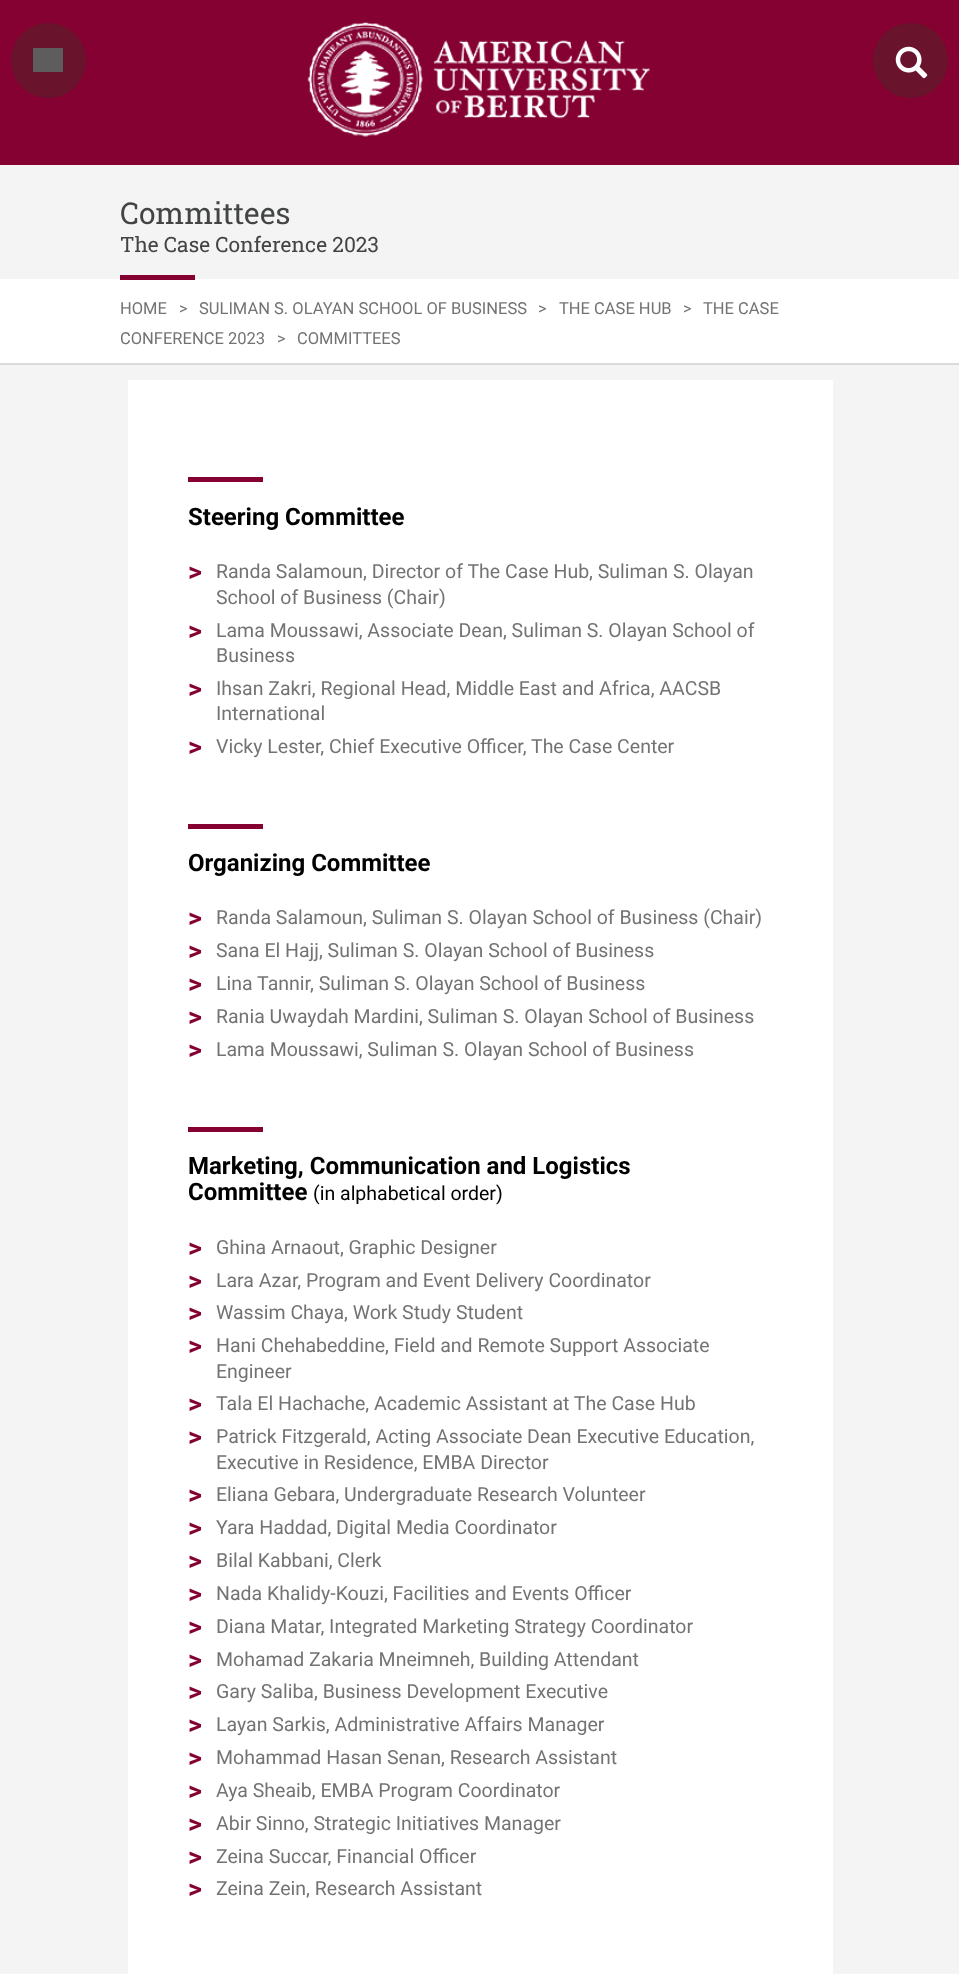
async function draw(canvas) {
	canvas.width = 959;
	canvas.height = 1974;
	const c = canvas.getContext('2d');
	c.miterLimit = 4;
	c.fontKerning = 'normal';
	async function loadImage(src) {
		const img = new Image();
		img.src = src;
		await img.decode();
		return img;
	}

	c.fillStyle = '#f4f4f4';
	c.fillRect(0, 0, 959, 1974);
	c.fillStyle = '#840132';
	c.fillRect(0, 0, 959, 165);
	c.fillStyle = '#6a132c';
	c.beginPath();
	c.arc(48.5, 60.5, 37.5, 0, 2 * Math.PI);
	c.fill();
	c.fillStyle = '#5d5d5d';
	c.fillRect(33, 48, 30, 24);
	c.drawImage(await loadImage('img1.png'), 307, 22, 343, 115);
	c.fillStyle = '#6a132c';
	c.beginPath();
	c.arc(910.5, 60.5, 37.5, 0, 2 * Math.PI);
	c.fill();
	c.drawImage(await loadImage('img2.png'), 895, 46, 33, 33);
	c.font = '30px Roboto Slab';
	c.fillStyle = '#434444';
	c.fillText('Committees', 120, 224);
	c.font = '21px Roboto Slab';
	c.fillText('The Case Conference 2023', 120, 252);
	for (const [x, y, w, h, color] of [
		[0, 279, 959, 84, '#fff'],
		[120, 275, 75, 5, '#840132'],
		[0, 363, 959, 2, '#d9dada'],
	]) {
		c.fillStyle = color;
		c.fillRect(x, y, w, h);
	}
	c.font = '16.5px Roboto';
	c.fillStyle = '#737373';
	for (const [text, x, y] of [
		['HOME', 120, 314],
		['>', 179, 314],
		['SULIMAN S. OLAYAN SCHOOL OF BUSINESS', 199, 314],
		['>', 538, 314],
		['THE CASE HUB', 559, 314],
		['>', 683, 314],
		['THE CASE', 703, 314],
		['CONFERENCE 2023', 120, 344],
		['>', 277, 344],
		['COMMITTEES', 297, 344],
	]) {
		c.fillText(text, x, y);
	}
	c.fillStyle = '#fff';
	c.fillRect(128, 380, 705, 1594);
	c.fillStyle = '#840132';
	c.fillRect(188, 477, 75, 5);
	c.font = 'bold 24px Roboto';
	c.fillStyle = '#000';
	c.fillText('Steering Committee', 188, 525);
	c.letterSpacing = '-5px';
	c.font = 'bold 27px Roboto';
	c.fillStyle = '#840132';
	c.fillText('>', 188, 581);
	c.letterSpacing = '0px';
	c.font = '19.5px Roboto';
	c.fillStyle = '#737373';
	c.fillText('Randa Salamoun, Director of The Case Hub, Suliman S. Olayan', 216, 578);
	c.fillText('School of Business (Chair)', 216, 604);
	c.letterSpacing = '-5px';
	c.font = 'bold 27px Roboto';
	c.fillStyle = '#840132';
	c.fillText('>', 188, 640);
	c.letterSpacing = '0px';
	c.font = '19.5px Roboto';
	c.fillStyle = '#737373';
	c.fillText('Lama Moussawi, Associate Dean, Suliman S. Olayan School of', 216, 637);
	c.fillText('Business', 216, 662);
	c.letterSpacing = '-5px';
	c.font = 'bold 27px Roboto';
	c.fillStyle = '#840132';
	c.fillText('>', 188, 698);
	c.letterSpacing = '0px';
	c.font = '19.5px Roboto';
	c.fillStyle = '#737373';
	c.fillText('Ihsan Zakri, Regional Head, Middle East and Africa, AACSB', 216, 695);
	c.fillText('International', 216, 720);
	c.letterSpacing = '-5px';
	c.font = 'bold 27px Roboto';
	c.fillStyle = '#840132';
	c.fillText('>', 188, 756);
	c.letterSpacing = '0px';
	c.font = '19.5px Roboto';
	c.fillStyle = '#737373';
	c.fillText('Vicky Lester, Chief Executive Officer, The Case Center', 216, 753);
	c.fillStyle = '#840132';
	c.fillRect(188, 824, 75, 5);
	c.font = 'bold 24px Roboto';
	c.fillStyle = '#000';
	c.fillText('Organizing Committee', 188, 871);
	c.letterSpacing = '-5px';
	c.font = 'bold 27px Roboto';
	c.fillStyle = '#840132';
	c.fillText('>', 188, 927);
	c.letterSpacing = '0px';
	c.font = '19.5px Roboto';
	c.fillStyle = '#737373';
	c.fillText('Randa Salamoun, Suliman S. Olayan School of Business (Chair)', 216, 924);
	c.letterSpacing = '-5px';
	c.font = 'bold 27px Roboto';
	c.fillStyle = '#840132';
	c.fillText('>', 188, 960);
	c.letterSpacing = '0px';
	c.font = '19.5px Roboto';
	c.fillStyle = '#737373';
	c.fillText('Sana El Hajj, Suliman S. Olayan School of Business', 216, 957);
	c.letterSpacing = '-5px';
	c.font = 'bold 27px Roboto';
	c.fillStyle = '#840132';
	c.fillText('>', 188, 993);
	c.letterSpacing = '0px';
	c.font = '19.5px Roboto';
	c.fillStyle = '#737373';
	c.fillText('Lina Tannir, Suliman S. Olayan School of Business', 216, 990);
	c.letterSpacing = '-5px';
	c.font = 'bold 27px Roboto';
	c.fillStyle = '#840132';
	c.fillText('>', 188, 1026);
	c.letterSpacing = '0px';
	c.font = '19.5px Roboto';
	c.fillStyle = '#737373';
	c.fillText('Rania Uwaydah Mardini, Suliman S. Olayan School of Business', 216, 1023);
	c.letterSpacing = '-5px';
	c.font = 'bold 27px Roboto';
	c.fillStyle = '#840132';
	c.fillText('>', 188, 1059);
	c.letterSpacing = '0px';
	c.font = '19.5px Roboto';
	c.fillStyle = '#737373';
	c.fillText('Lama Moussawi, Suliman S. Olayan School of Business', 216, 1056);
	c.fillStyle = '#840132';
	c.fillRect(188, 1127, 75, 5);
	c.font = 'bold 24px Roboto';
	c.fillStyle = '#000';
	c.fillText('Marketing, Communication and Logistics', 188, 1174);
	c.fillText('Committee', 188, 1200);
	c.font = '19.5px Roboto';
	c.fillText('(in alphabetical order)', 313, 1200);
	c.letterSpacing = '-5px';
	c.font = 'bold 27px Roboto';
	c.fillStyle = '#840132';
	c.fillText('>', 188, 1257);
	c.letterSpacing = '0px';
	c.font = '19.5px Roboto';
	c.fillStyle = '#737373';
	c.fillText('Ghina Arnaout, Graphic Designer', 216, 1254);
	c.letterSpacing = '-5px';
	c.font = 'bold 27px Roboto';
	c.fillStyle = '#840132';
	c.fillText('>', 188, 1290);
	c.letterSpacing = '0px';
	c.font = '19.5px Roboto';
	c.fillStyle = '#737373';
	c.fillText('Lara Azar, Program and Event Delivery Coordinator', 216, 1287);
	c.letterSpacing = '-5px';
	c.font = 'bold 27px Roboto';
	c.fillStyle = '#840132';
	c.fillText('>', 188, 1322);
	c.letterSpacing = '0px';
	c.font = '19.5px Roboto';
	c.fillStyle = '#737373';
	c.fillText('Wassim Chaya, Work Study Student', 216, 1319);
	c.letterSpacing = '-5px';
	c.font = 'bold 27px Roboto';
	c.fillStyle = '#840132';
	c.fillText('>', 188, 1355);
	c.letterSpacing = '0px';
	c.font = '19.5px Roboto';
	c.fillStyle = '#737373';
	c.fillText('Hani Chehabeddine, Field and Remote Support Associate', 216, 1352);
	c.fillText('Engineer', 216, 1378);
	c.letterSpacing = '-5px';
	c.font = 'bold 27px Roboto';
	c.fillStyle = '#840132';
	c.fillText('>', 188, 1413);
	c.letterSpacing = '0px';
	c.font = '19.5px Roboto';
	c.fillStyle = '#737373';
	c.fillText('Tala El Hachache, Academic Assistant at The Case Hub', 216, 1410);
	c.letterSpacing = '-5px';
	c.font = 'bold 27px Roboto';
	c.fillStyle = '#840132';
	c.fillText('>', 188, 1446);
	c.letterSpacing = '0px';
	c.font = '19.5px Roboto';
	c.fillStyle = '#737373';
	c.fillText('Patrick Fitzgerald, Acting Associate Dean Executive Education,', 216, 1443);
	c.fillText('Executive in Residence, EMBA Director', 216, 1469);
	c.letterSpacing = '-5px';
	c.font = 'bold 27px Roboto';
	c.fillStyle = '#840132';
	c.fillText('>', 188, 1504);
	c.letterSpacing = '0px';
	c.font = '19.5px Roboto';
	c.fillStyle = '#737373';
	c.fillText('Eliana Gebara, Undergraduate Research Volunteer', 216, 1501);
	c.letterSpacing = '-5px';
	c.font = 'bold 27px Roboto';
	c.fillStyle = '#840132';
	c.fillText('>', 188, 1537);
	c.letterSpacing = '0px';
	c.font = '19.5px Roboto';
	c.fillStyle = '#737373';
	c.fillText('Yara Haddad, Digital Media Coordinator', 216, 1534);
	c.letterSpacing = '-5px';
	c.font = 'bold 27px Roboto';
	c.fillStyle = '#840132';
	c.fillText('>', 188, 1570);
	c.letterSpacing = '0px';
	c.font = '19.5px Roboto';
	c.fillStyle = '#737373';
	c.fillText('Bilal Kabbani, Clerk', 216, 1567);
	c.letterSpacing = '-5px';
	c.font = 'bold 27px Roboto';
	c.fillStyle = '#840132';
	c.fillText('>', 188, 1603);
	c.letterSpacing = '0px';
	c.font = '19.5px Roboto';
	c.fillStyle = '#737373';
	c.fillText('Nada Khalidy-Kouzi, Facilities and Events Officer', 216, 1600);
	c.letterSpacing = '-5px';
	c.font = 'bold 27px Roboto';
	c.fillStyle = '#840132';
	c.fillText('>', 188, 1636);
	c.letterSpacing = '0px';
	c.font = '19.5px Roboto';
	c.fillStyle = '#737373';
	c.fillText('Diana Matar, Integrated Marketing Strategy Coordinator', 216, 1633);
	c.letterSpacing = '-5px';
	c.font = 'bold 27px Roboto';
	c.fillStyle = '#840132';
	c.fillText('>', 188, 1669);
	c.letterSpacing = '0px';
	c.font = '19.5px Roboto';
	c.fillStyle = '#737373';
	c.fillText('Mohamad Zakaria Mneimneh, Building Attendant', 216, 1666);
	c.letterSpacing = '-5px';
	c.font = 'bold 27px Roboto';
	c.fillStyle = '#840132';
	c.fillText('>', 188, 1701);
	c.letterSpacing = '0px';
	c.font = '19.5px Roboto';
	c.fillStyle = '#737373';
	c.fillText('Gary Saliba, Business Development Executive', 216, 1698);
	c.letterSpacing = '-5px';
	c.font = 'bold 27px Roboto';
	c.fillStyle = '#840132';
	c.fillText('>', 188, 1734);
	c.letterSpacing = '0px';
	c.font = '19.5px Roboto';
	c.fillStyle = '#737373';
	c.fillText('Layan Sarkis, Administrative Affairs Manager', 216, 1731);
	c.letterSpacing = '-5px';
	c.font = 'bold 27px Roboto';
	c.fillStyle = '#840132';
	c.fillText('>', 188, 1767);
	c.letterSpacing = '0px';
	c.font = '19.5px Roboto';
	c.fillStyle = '#737373';
	c.fillText('Mohammad Hasan Senan, Research Assistant', 216, 1764);
	c.letterSpacing = '-5px';
	c.font = 'bold 27px Roboto';
	c.fillStyle = '#840132';
	c.fillText('>', 188, 1800);
	c.letterSpacing = '0px';
	c.font = '19.5px Roboto';
	c.fillStyle = '#737373';
	c.fillText('Aya Sheaib, EMBA Program Coordinator', 216, 1797);
	c.letterSpacing = '-5px';
	c.font = 'bold 27px Roboto';
	c.fillStyle = '#840132';
	c.fillText('>', 188, 1833);
	c.letterSpacing = '0px';
	c.font = '19.5px Roboto';
	c.fillStyle = '#737373';
	c.fillText('Abir Sinno, Strategic Initiatives Manager', 216, 1830);
	c.letterSpacing = '-5px';
	c.font = 'bold 27px Roboto';
	c.fillStyle = '#840132';
	c.fillText('>', 188, 1866);
	c.letterSpacing = '0px';
	c.font = '19.5px Roboto';
	c.fillStyle = '#737373';
	c.fillText('Zeina Succar, Financial Officer', 216, 1863);
	c.letterSpacing = '-5px';
	c.font = 'bold 27px Roboto';
	c.fillStyle = '#840132';
	c.fillText('>', 188, 1898);
	c.letterSpacing = '0px';
	c.font = '19.5px Roboto';
	c.fillStyle = '#737373';
	c.fillText('Zeina Zein, Research Assistant', 216, 1895);
}

draw(document.querySelector('canvas'));
